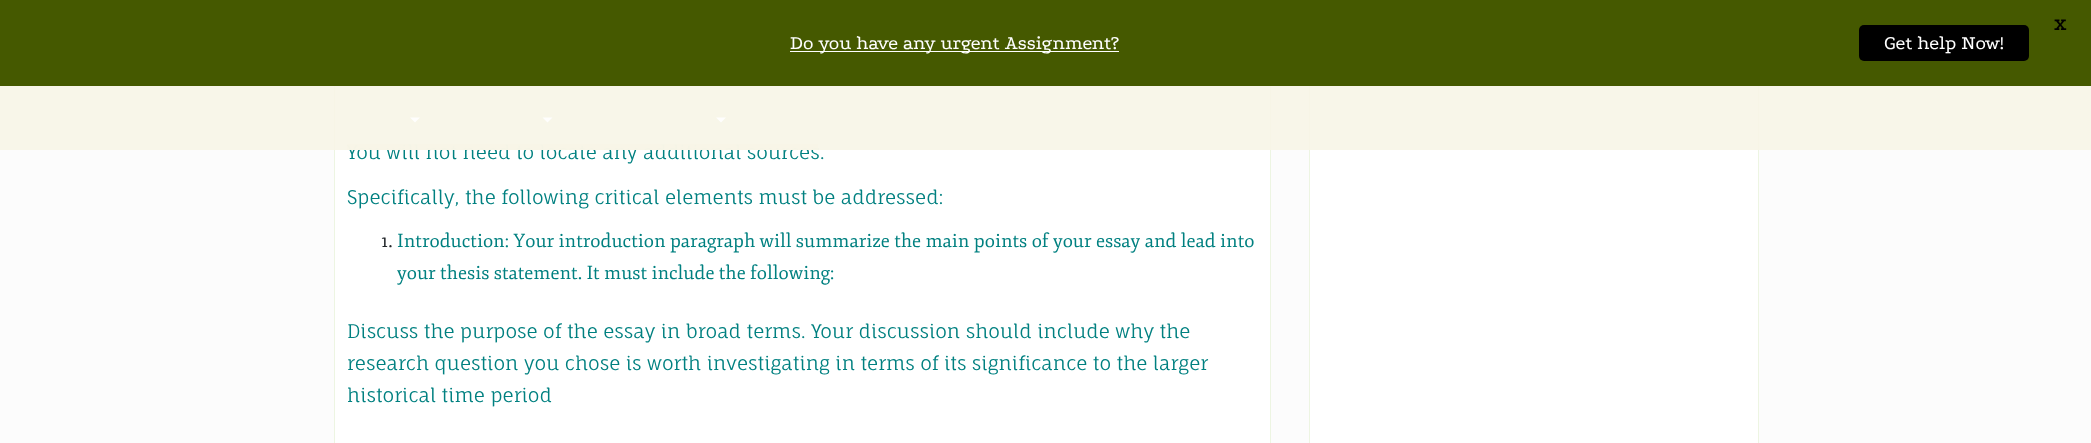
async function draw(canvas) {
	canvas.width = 2091;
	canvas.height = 443;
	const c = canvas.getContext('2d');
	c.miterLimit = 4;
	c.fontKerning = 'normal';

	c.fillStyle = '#fcfcfc';
	c.fillRect(0, 0, 2091, 443);
	c.fillStyle = '#fff';
	c.fillRect(335, 86, 935, 357);
	c.strokeStyle = '#edf5e2';
	c.strokeRect(334.5, -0.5, 936, 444);
	c.fillRect(1310, 86, 448, 357);
	c.strokeRect(1309.5, -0.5, 449, 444);
	c.fillStyle = '#455900';
	c.fillRect(0, 0, 2091, 86);
	c.font = 'bold 18px Podkova';
	c.fillStyle = '#000';
	c.fillText('X', 2054, 30);
	c.fillStyle = '#fff';
	c.fillRect(790, 51, 329, 1);
	c.font = '20px Podkova';
	c.fillText('Do you have any urgent Assignment?', 790, 49);
	c.fillStyle = '#000';
	c.beginPath();
	c.roundRect(1859, 25, 170, 36, 5);
	c.fill();
	c.fillStyle = '#fff';
	c.fillText('Get help Now!', 1884, 49);
	c.font = '18.75px Fauna One';
	c.fillStyle = '#008080';
	c.fillText('You will not need to locate any additional sources.', 347, 159);
	c.fillStyle = '#f7f5e7e6';
	c.fillRect(0, 86, 2091, 64);
	c.fillRect(347, 144, 471, 6);
	c.fillStyle = '#ffffffe6';
	c.beginPath();
	c.moveTo(410, 117.5);
	c.lineTo(420, 117.5);
	c.lineTo(415, 122.5);
	c.closePath();
	c.fill();
	c.beginPath();
	c.moveTo(542.5, 117.5);
	c.lineTo(552.5, 117.5);
	c.lineTo(547.5, 122.5);
	c.closePath();
	c.fill();
	c.beginPath();
	c.moveTo(716, 117.5);
	c.lineTo(726, 117.5);
	c.lineTo(721, 122.5);
	c.closePath();
	c.fill();
	c.fillStyle = '#008080';
	c.fillText('Specifically, the following critical elements must be addressed:', 347, 204);
	c.font = '18.75px Fjord';
	c.fillStyle = '#212529';
	c.fillText('1.', 381, 247);
	c.fillStyle = '#008080';
	c.fillText('Introduction: Your introduction paragraph will summarize the main points of your essay and lead into', 397, 247);
	c.fillText('your thesis statement. It must include the following:', 397, 279);
	c.font = '18.75px Fauna One';
	for (const [text, x, y] of [
		['Discuss the purpose of the essay in broad terms. Your discussion should include why the', 347, 338],
		['research question you chose is worth investigating in terms of its significance to the larger', 347, 370],
		['historical time period', 347, 402],
	]) {
		c.fillText(text, x, y);
	}
}

draw(document.querySelector('canvas'));
